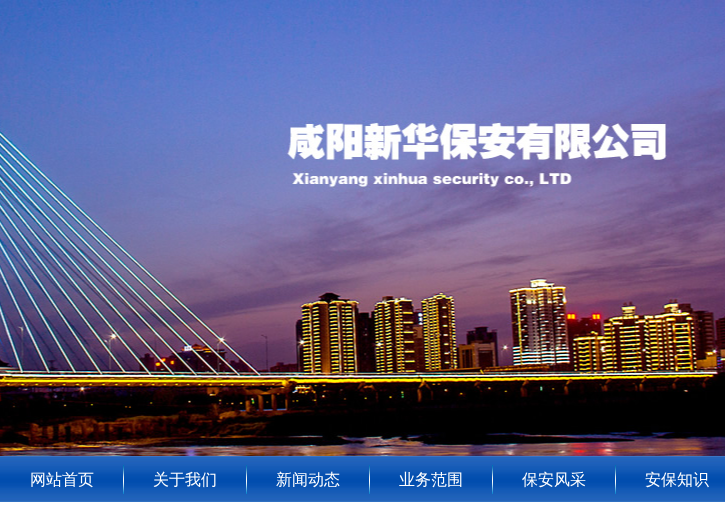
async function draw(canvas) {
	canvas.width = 725;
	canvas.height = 525;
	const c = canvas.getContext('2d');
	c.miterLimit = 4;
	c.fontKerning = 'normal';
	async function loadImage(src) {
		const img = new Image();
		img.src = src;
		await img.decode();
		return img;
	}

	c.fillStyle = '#fff';
	c.fillRect(0, 0, 725, 525);
	c.drawImage(await loadImage('img1.png'), 0, 0, 725, 456);
	c.drawImage(await loadImage('img2.png'), 0, 456, 725, 46);
	c.drawImage(await loadImage('img3.png'), 123, 465, 1, 29);
	c.font = '500 16px WenQuanYi Zen Hei';
	c.fillText('网站首页', 30, 485);
	c.drawImage(await loadImage('img3.png'), 246, 465, 1, 29);
	c.fillText('关于我们', 153, 485);
	c.drawImage(await loadImage('img3.png'), 369, 465, 1, 29);
	c.fillText('新闻动态', 276, 485);
	c.drawImage(await loadImage('img3.png'), 492, 465, 1, 29);
	c.fillText('业务范围', 399, 485);
	c.drawImage(await loadImage('img3.png'), 615, 465, 1, 29);
	c.fillText('保安风采', 522, 485);
	c.fillText('安保知识', 645, 485);
}

draw(document.querySelector('canvas'));
